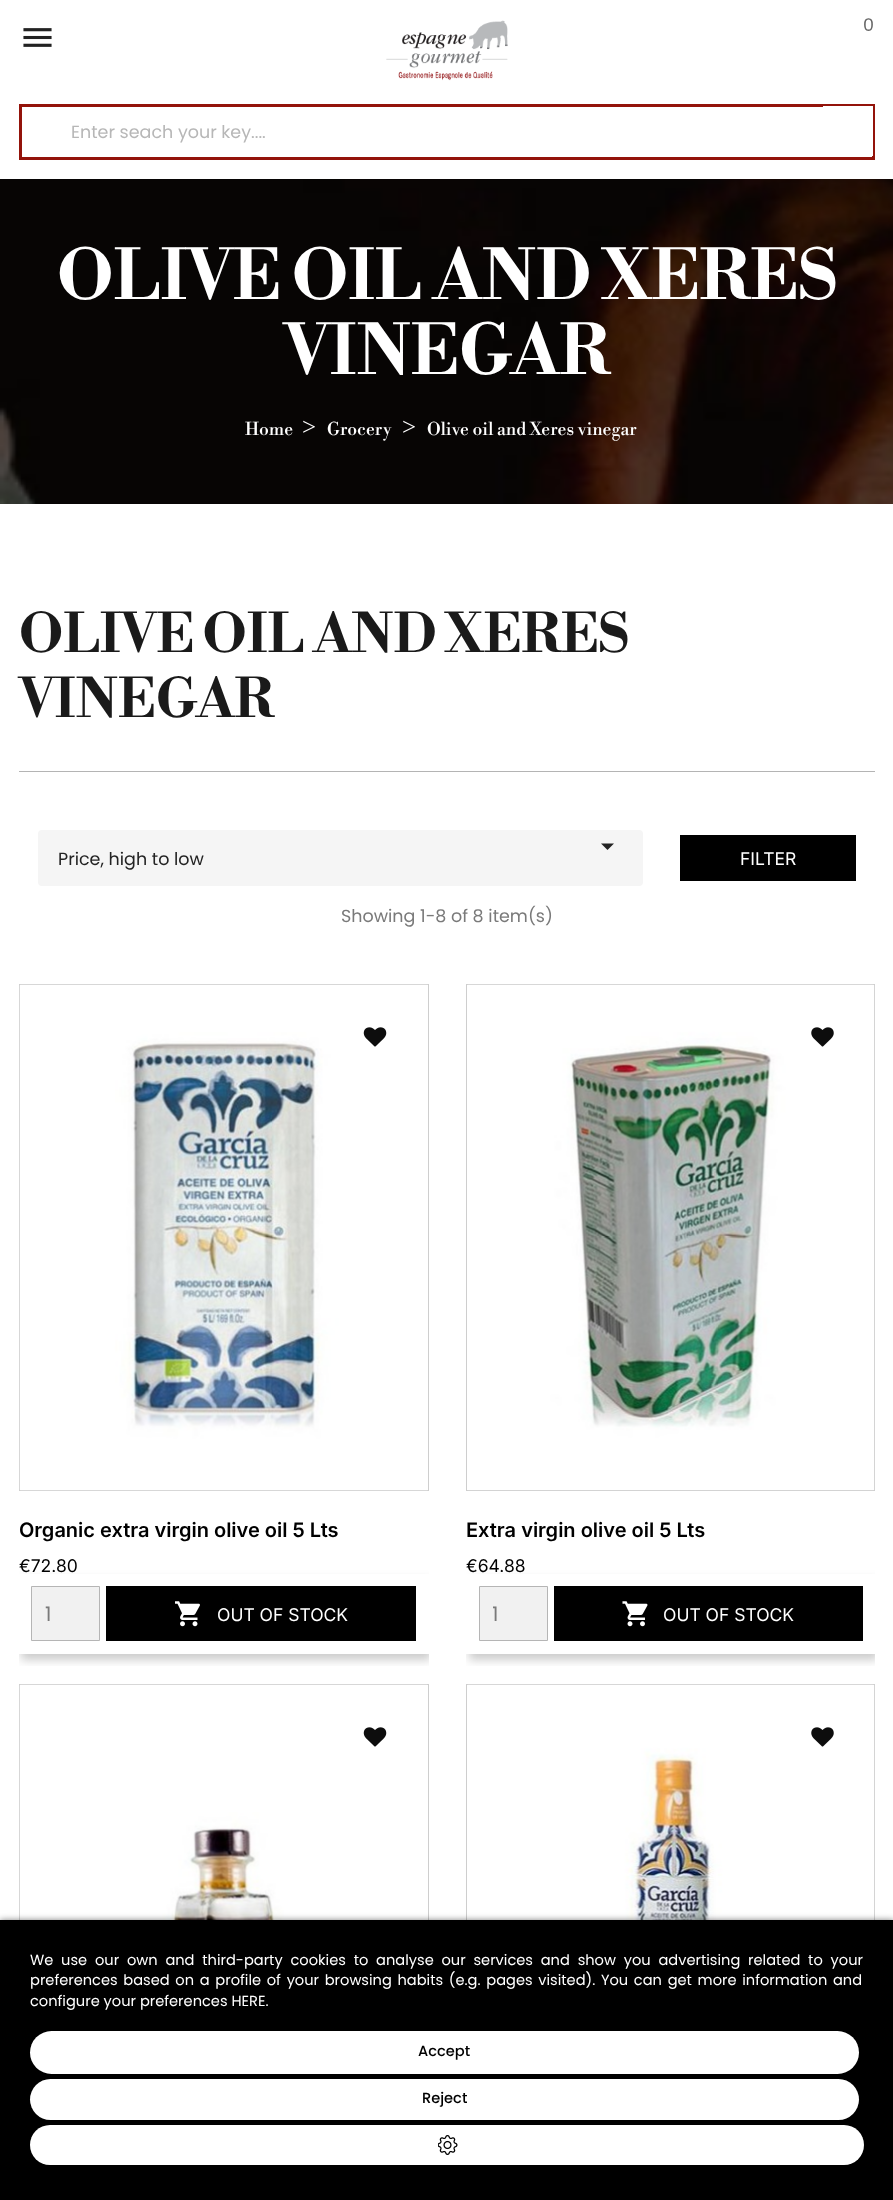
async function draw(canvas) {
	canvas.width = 893;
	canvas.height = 2200;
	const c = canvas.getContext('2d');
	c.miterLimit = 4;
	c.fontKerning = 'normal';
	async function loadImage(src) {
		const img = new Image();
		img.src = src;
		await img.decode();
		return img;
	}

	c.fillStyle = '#fff';
	c.fillRect(0, 0, 893, 2200);
	c.drawImage(await loadImage('img1.png'), 23, 28, 29, 19);
	c.drawImage(await loadImage('img2.png'), 386, 20, 122, 61);
	c.font = '17.5px Poppins';
	c.fillStyle = '#666';
	c.fillText('0', 863, 31);
	c.strokeStyle = '#93130a';
	c.lineWidth = 3;
	c.strokeRect(20.5, 105.5, 853, 53);
	c.fillStyle = '#b7b7b7';
	c.fillText('Enter seach your key....', 71, 138);
	c.fillStyle = '#fff';
	c.fillRect(823, 106, 50, 50);
	c.drawImage(await loadImage('img3.png'), 0, 179, 893, 325);
	c.font = 'bold 68.75px Libre Bodoni';
	c.fillText('OLIVE OIL AND XERES', 57, 299);
	c.fillText('VINEGAR', 284, 374);
	c.font = '17.5px Libre Bodoni';
	c.fillText('Home', 245, 435);
	c.font = '25px Liberation Serif';
	c.fillText('>', 302, 435);
	c.font = '17.5px Libre Bodoni';
	c.fillText('Grocery', 327, 435);
	c.font = '25px Liberation Serif';
	c.fillText('>', 402, 435);
	c.font = '17.5px Libre Bodoni';
	c.fillText('Olive oil and Xeres vinegar', 427, 435);
	c.fillStyle = '#b4b4b4';
	c.fillRect(19, 771, 856, 1);
	c.font = 'bold 53.75px Libre Bodoni';
	c.fillStyle = '#1a1a1a';
	c.fillText('OLIVE OIL AND XERES', 19, 652);
	c.fillText('VINEGAR', 19, 717);
	c.fillStyle = '#f5f5f5';
	c.beginPath();
	c.roundRect(38, 830, 605, 56, 4);
	c.fill();
	c.fillStyle = '#232323';
	c.beginPath();
	c.moveTo(601, 843.5);
	c.lineTo(614, 843.5);
	c.lineTo(607.5, 850);
	c.closePath();
	c.fill();
	c.font = '17.5px Poppins';
	c.fillText('Price, high to low', 58, 865);
	c.fillStyle = '#000';
	c.fillRect(680, 835, 176, 46);
	c.font = '17.5px Inter';
	c.fillStyle = '#fff';
	c.fillText('FILTER', 740, 865);
	c.font = '17.5px Poppins';
	c.fillStyle = '#7a7a7a';
	c.fillText('Showing 1-8 of 8 item(s)', 341, 922);
	c.strokeStyle = '#cecece';
	c.lineWidth = 1;
	c.strokeRect(19.5, 984.5, 409, 506);
	c.drawImage(await loadImage('img4.png'), 19, 984, 409, 507);
	c.drawImage(await loadImage('img5.png'), 363, 1027, 24, 20);
	c.font = '600 20px Inter';
	c.fillStyle = '#000';
	c.fillText('Organic extra virgin olive oil 5 Lts', 19, 1537);
	c.save();
	c.beginPath();
	c.rect(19, 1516, 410, 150);
	c.clip();
	c.fillStyle = '#00000033';
	c.filter = 'blur(5px)';
	c.beginPath();
	c.rect(21, 1580, 410, 80);
	c.fill();
	c.filter = 'none';
	c.restore();
	c.font = '17.5px Inter';
	c.fillText('€72.80', 19, 1572);
	c.fillStyle = '#fff';
	c.fillRect(19, 1574, 410, 80);
	c.fillStyle = '#f1f1f1';
	c.beginPath();
	c.rect(31.5, 1586.5, 68, 54);
	c.fill();
	c.strokeStyle = '#b5b5b5';
	c.stroke();
	c.font = '20px Poppins';
	c.fillStyle = '#7a7a7a';
	c.fillText('1', 45, 1621);
	c.fillStyle = '#000';
	c.fillRect(106, 1586, 310, 55);
	c.drawImage(await loadImage('img6.png'), 175, 1601, 25, 26);
	c.font = '17.5px Inter';
	c.fillStyle = '#fff';
	c.fillText('OUT OF STOCK', 217, 1621);
	c.strokeStyle = '#cecece';
	c.strokeRect(466.5, 984.5, 408, 506);
	c.drawImage(await loadImage('img7.png'), 467, 984, 408, 507);
	c.drawImage(await loadImage('img8.png'), 811, 1027, 23, 20);
	c.font = '600 20px Inter';
	c.fillStyle = '#000';
	c.fillText('Extra virgin olive oil 5 Lts', 466, 1537);
	c.save();
	c.beginPath();
	c.rect(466, 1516, 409, 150);
	c.clip();
	c.fillStyle = '#00000033';
	c.filter = 'blur(5px)';
	c.beginPath();
	c.rect(469, 1580, 409, 80);
	c.fill();
	c.filter = 'none';
	c.restore();
	c.font = '17.5px Inter';
	c.fillText('€64.88', 466, 1572);
	c.fillStyle = '#fff';
	c.fillRect(466, 1574, 409, 80);
	c.fillStyle = '#f1f1f1';
	c.beginPath();
	c.rect(479.5, 1586.5, 68, 54);
	c.fill();
	c.strokeStyle = '#b5b5b5';
	c.stroke();
	c.save();
	c.beginPath();
	c.rect(493, 1599, 41, 31);
	c.clip();
	c.font = '20px Poppins';
	c.fillStyle = '#7a7a7a';
	c.fillText('1', 492, 1621);
	c.restore();
	c.fillStyle = '#000';
	c.fillRect(554, 1586, 309, 55);
	c.drawImage(await loadImage('img9.png'), 622, 1601, 26, 26);
	c.fillStyle = '#fff';
	c.fillText('OUT OF STOCK', 663, 1621);
	c.strokeStyle = '#cecece';
	c.strokeRect(19.5, 1684.5, 409, 508);
	c.drawImage(await loadImage('img10.png'), 19, 1684, 408, 236);
	c.drawImage(await loadImage('img5.png'), 363, 1727, 24, 20);
	c.strokeRect(466.5, 1684.5, 408, 508);
	c.drawImage(await loadImage('img11.png'), 467, 1684, 408, 236);
	c.drawImage(await loadImage('img8.png'), 811, 1727, 23, 20);
	c.fillStyle = '#00000080';
	c.filter = 'blur(3px)';
	c.beginPath();
	c.rect(0, 1920, 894, 280);
	c.fill();
	c.filter = 'none';
	c.fillStyle = '#000';
	c.fillRect(0, 1920, 893, 280);
	c.wordSpacing = '3.9px';
	c.font = '14.62px Poppins';
	c.fillStyle = '#fff';
	c.fillText('We use our own and third-party cookies to analyse our services and show you advertising related to your', 30, 1965);
	c.wordSpacing = '1.8px';
	c.fillText('preferences based on a profile of your browsing habits (e.g. pages visited). You can get more information and', 30, 1985);
	c.wordSpacing = '0px';
	c.fillText('configure your preferences HERE.', 30, 2006);
	c.beginPath();
	c.roundRect(30, 2031, 829, 43, 21.5);
	c.fill();
	c.font = '500 14.62px Poppins';
	c.fillStyle = '#000';
	c.fillText('Accept', 418, 2056);
	c.fillStyle = '#fff';
	c.beginPath();
	c.roundRect(30, 2079, 829, 41, 20.5);
	c.fill();
	c.fillStyle = '#000';
	c.fillText('Reject', 422, 2103);
	c.fillStyle = '#fff';
	c.beginPath();
	c.roundRect(30, 2125, 834, 40, 20);
	c.fill();
	c.drawImage(await loadImage('img12.png'), 438, 2135, 20, 20);
}

draw(document.querySelector('canvas'));
